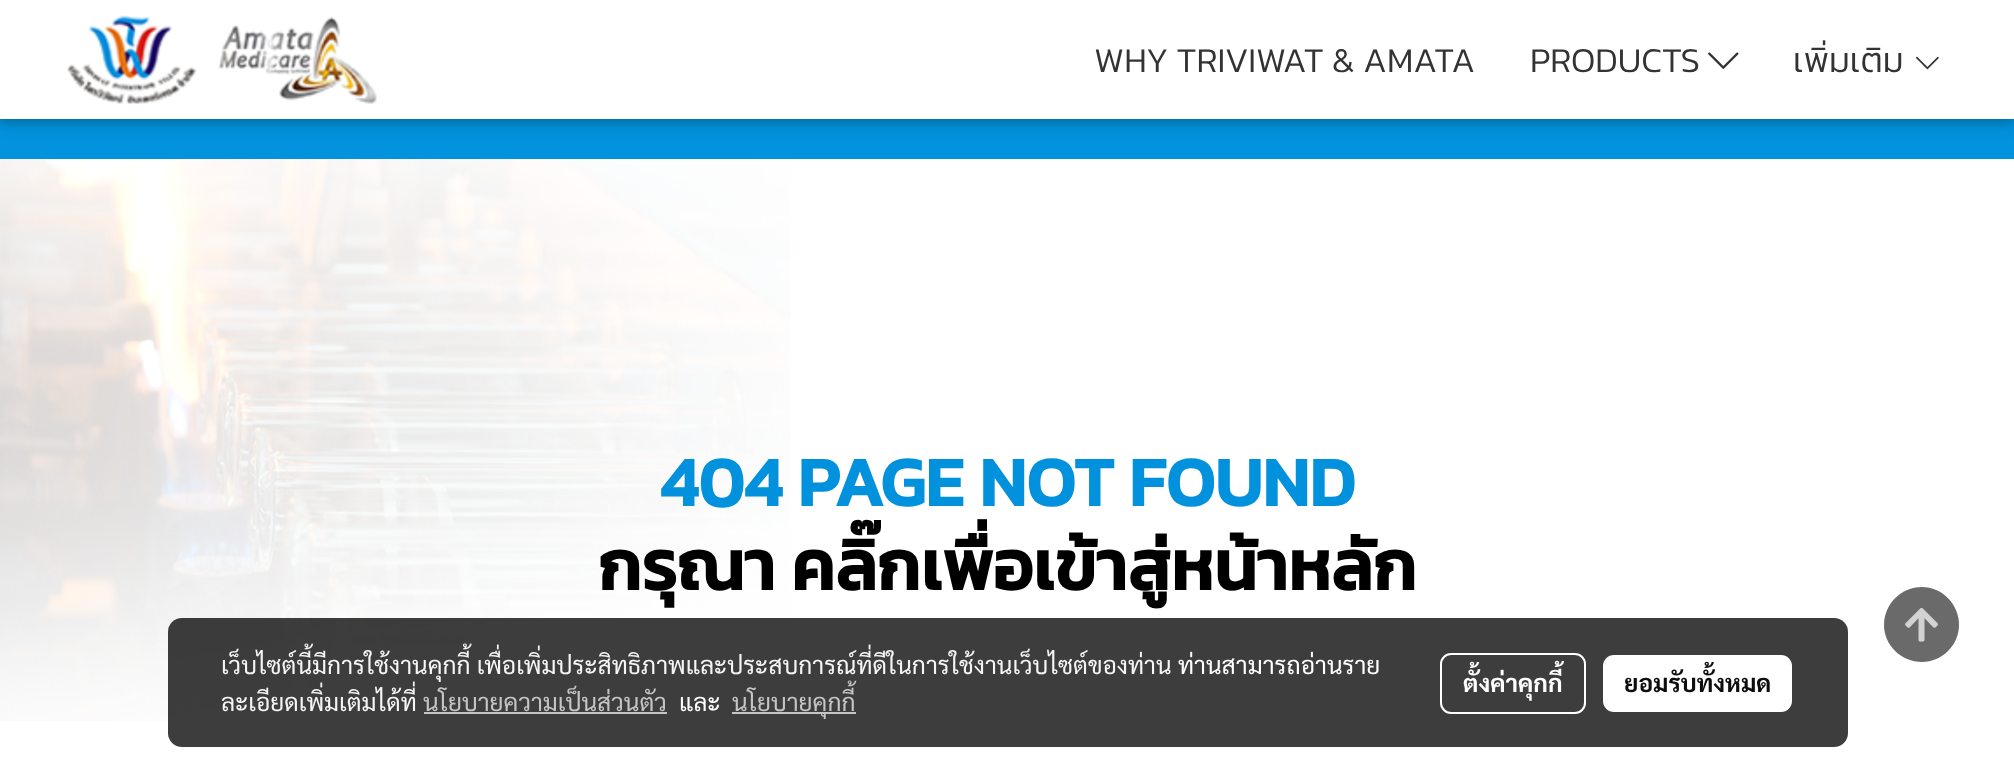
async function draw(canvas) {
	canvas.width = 2014;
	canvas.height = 761;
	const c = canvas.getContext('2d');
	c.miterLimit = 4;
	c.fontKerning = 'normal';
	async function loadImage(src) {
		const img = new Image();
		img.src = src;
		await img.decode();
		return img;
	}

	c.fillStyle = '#fff';
	c.fillRect(0, 0, 2014, 761);
	c.drawImage(await loadImage('img1.png'), 0, 159, 790, 562);
	c.fillStyle = '#0392dd';
	c.fillRect(0, 119, 2014, 40);
	c.fillStyle = '#0000001f';
	c.filter = 'blur(9px)';
	c.beginPath();
	c.rect(0, 4, 2014, 119);
	c.fill();
	c.filter = 'none';
	c.fillStyle = '#00000029';
	c.filter = 'blur(4.5px)';
	c.beginPath();
	c.rect(0, 4, 2014, 119);
	c.fill();
	c.filter = 'none';
	c.fillStyle = '#fff';
	c.fillRect(0, 0, 2014, 119);
	c.drawImage(await loadImage('img2.png'), 67, 15, 310, 89);
	c.font = '300 35px Kanit';
	c.fillStyle = '#333';
	c.fillText('WHY TRIVIWAT & AMATA', 1094, 72);
	c.fillText('PRODUCTS', 1530, 72);
	c.drawImage(await loadImage('img3.png'), 1708, 52, 31, 17);
	c.fillText('เพิ่มเติม', 1793, 72);
	c.drawImage(await loadImage('img4.png'), 1916, 56, 23, 14);
	c.font = 'bold 70px Kanit';
	c.fillStyle = '#0291dd';
	c.fillText('404 PAGE NOT FOUND', 660, 506);
	c.fillStyle = '#000';
	c.fillText('กรุณา คลิ๊กเพื่อเข้าสู่หน้าหลัก', 598, 590);
	c.fillStyle = '#6b6a6a';
	c.beginPath();
	c.moveTo(1922, 587);
	c.bezierCurveTo(1901, 587, 1884, 604, 1884, 625);
	c.bezierCurveTo(1884, 645, 1901, 662, 1922, 662);
	c.bezierCurveTo(1942, 662, 1959, 645, 1959, 625);
	c.bezierCurveTo(1959, 604, 1942, 587, 1922, 587);
	c.closePath();
	c.fill();
	c.drawImage(await loadImage('img5.png'), 1905, 607, 33, 35);
	c.fillStyle = '#000000c2';
	c.beginPath();
	c.roundRect(168, 618, 1680, 129, 14);
	c.fill();
	c.font = '24.5px Sarabun';
	c.fillStyle = '#f5f5f5';
	c.fillText('เว็บไซต์นี้มีการใช้งานคุกกี้ เพื่อเพิ่มประสิทธิภาพและประสบการณ์ที่ดีในการใช้งานเว็บไซต์ของท่าน', 221, 674);
	c.fillStyle = '#fff';
	c.fillText('ท่านสามารถอ่านราย', 1178, 674);
	c.fillStyle = '#f5f5f5';
	c.fillText('ละเอียดเพิ่มเติมได้ที่', 221, 711);
	c.fillStyle = '#c5c5c5';
	c.fillText('นโยบายความเป็นส่วนตัว', 423, 711);
	c.fillRect(424, 712, 243, 2);
	c.fillStyle = '#fff';
	c.fillText('และ', 679, 711);
	c.fillStyle = '#c5c5c5';
	c.fillRect(732, 712, 124, 2);
	c.fillText('นโยบายคุกกี้', 732, 711);
	c.beginPath();
	c.roundRect(1441, 654, 144, 59, 10);
	c.strokeStyle = '#fff';
	c.lineWidth = 2;
	c.stroke();
	c.font = 'bold 24.5px Sarabun';
	c.fillStyle = '#fff';
	c.fillText('ตั้งค่าคุกกี้', 1463, 692);
	c.beginPath();
	c.roundRect(1603, 655, 189, 57, 11);
	c.fill();
	c.fillStyle = '#0d0d0d';
	c.fillText('ยอมรับทั้งหมด', 1624, 692);
}

draw(document.querySelector('canvas'));
